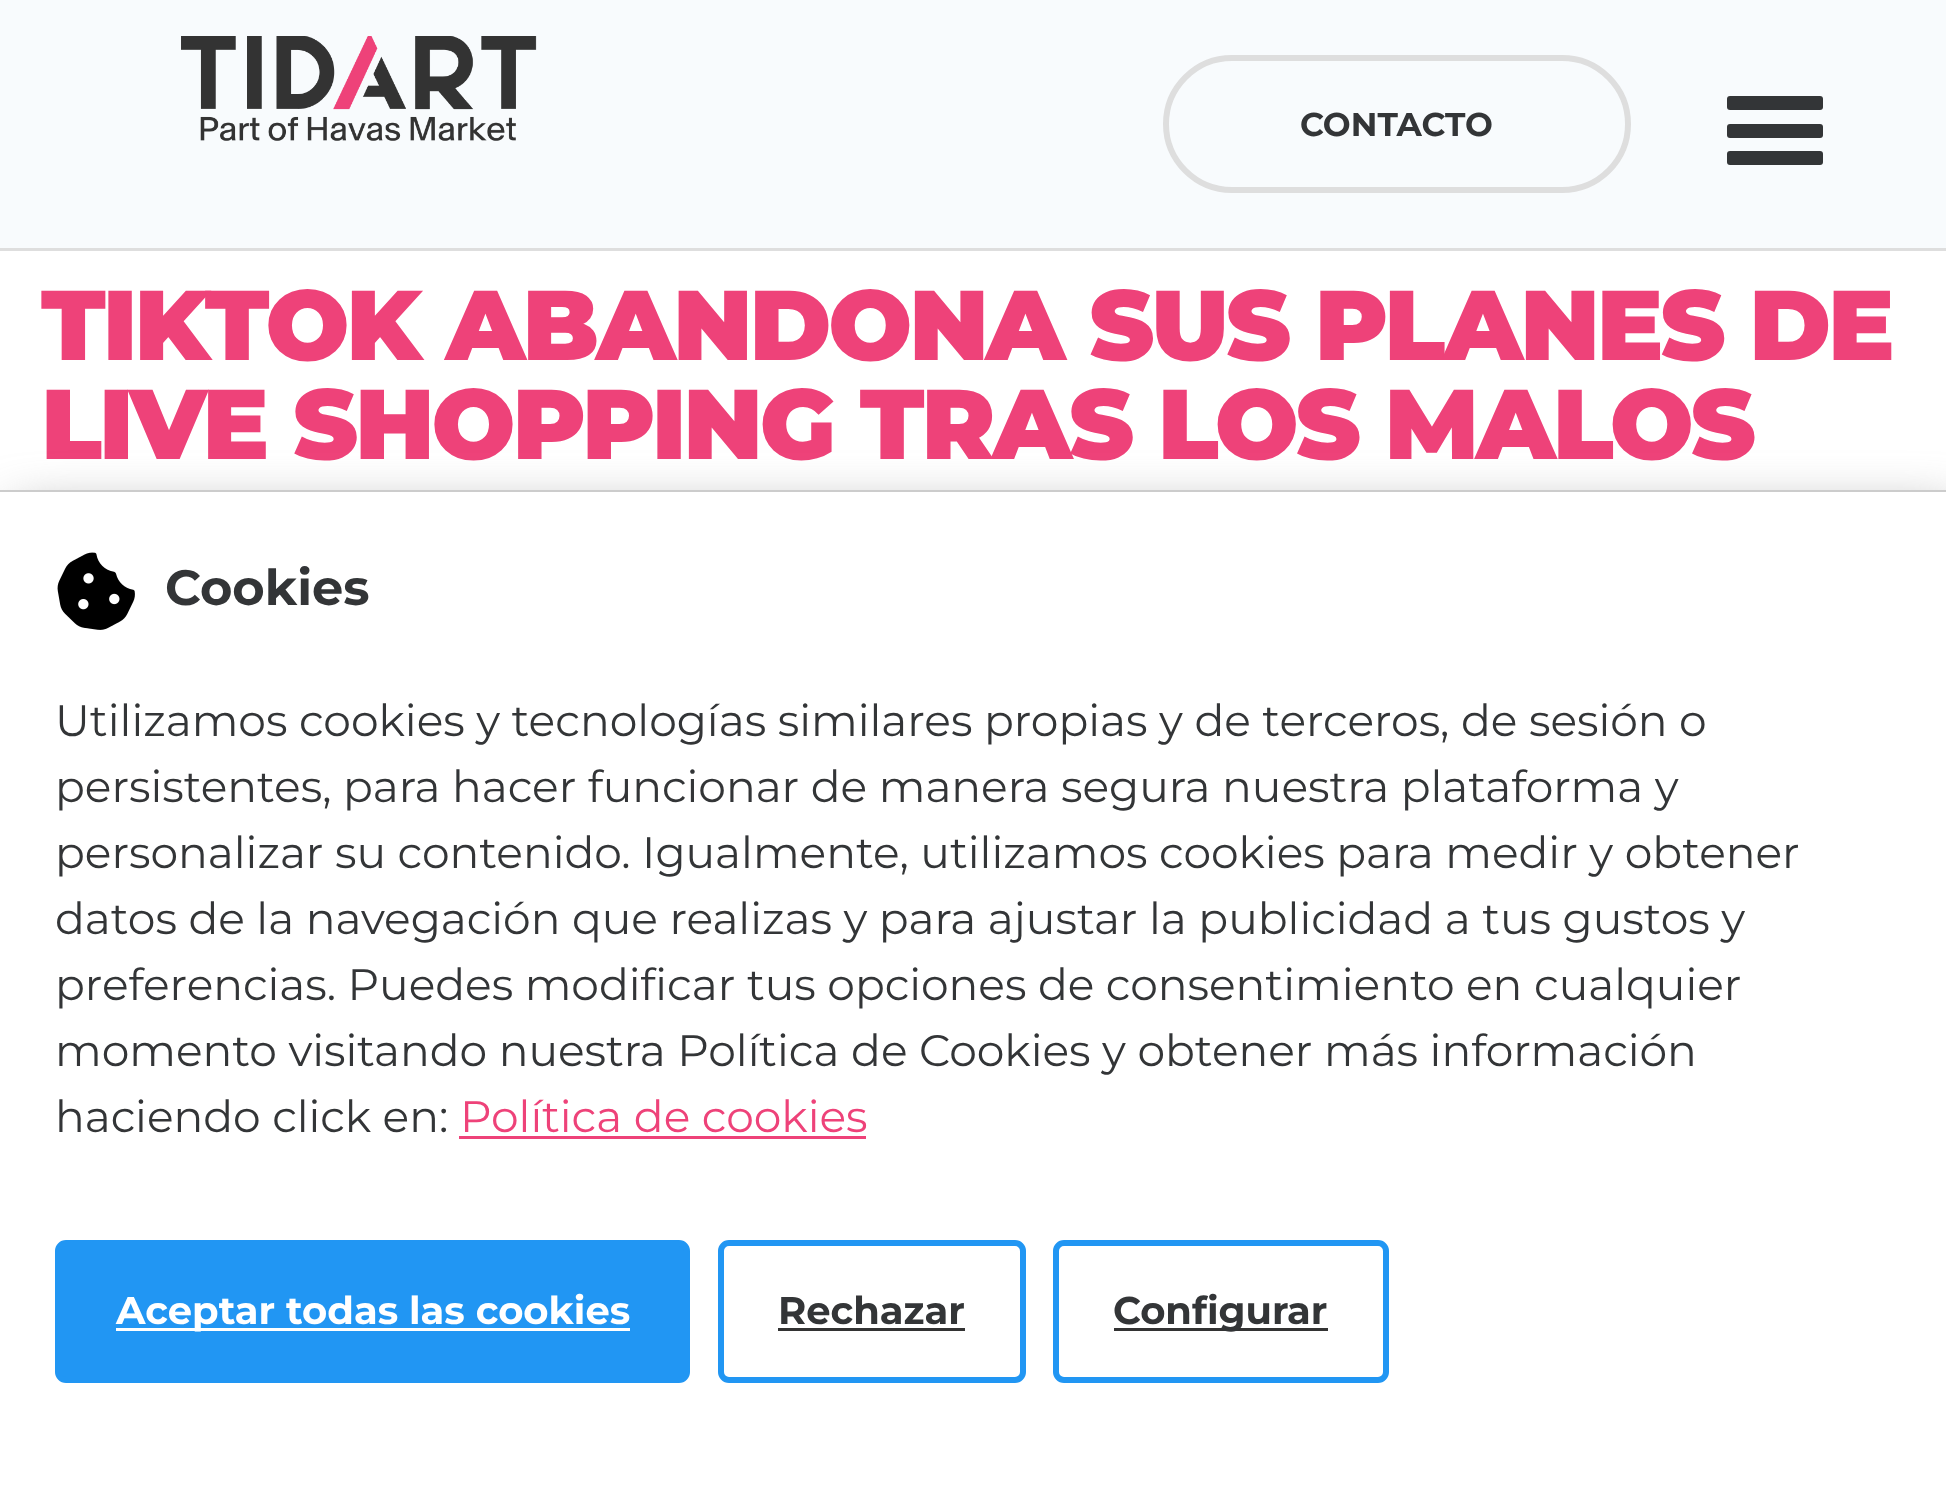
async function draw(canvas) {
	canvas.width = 1946;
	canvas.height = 1488;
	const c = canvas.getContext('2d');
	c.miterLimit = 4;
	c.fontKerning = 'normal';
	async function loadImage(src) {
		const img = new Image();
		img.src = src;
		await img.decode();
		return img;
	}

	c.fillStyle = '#fff';
	c.fillRect(0, 0, 1946, 1488);
	c.fillStyle = '#f8fbfd';
	c.fillRect(0, 0, 1946, 248);
	c.fillStyle = '#dedede';
	c.fillRect(0, 248, 1946, 3);
	c.drawImage(await loadImage('img1.png'), 181, 36, 356, 105);
	c.beginPath();
	c.roundRect(1166, 58, 462, 132, 66);
	c.strokeStyle = '#dedede';
	c.lineWidth = 6;
	c.stroke();
	c.font = 'bold 33px Montserrat';
	c.fillStyle = '#333537';
	c.fillText('CONTACTO', 1300, 136);
	c.beginPath();
	c.roundRect(1727, 124, 96, 14, 3);
	c.fill();
	c.beginPath();
	c.roundRect(1727, 96, 96, 14, 3);
	c.fill();
	c.beginPath();
	c.roundRect(1727, 151, 96, 14, 3);
	c.fill();
	c.letterSpacing = '-3px';
	c.font = '900 99px Montserrat';
	c.fillStyle = '#ee4279';
	c.fillText('TIKTOK ABANDONA SUS PLANES DE', 41, 360);
	c.fillText('LIVE SHOPPING TRAS LOS MALOS', 41, 459);
	c.fillStyle = '#888';
	c.filter = 'blur(27.5px)';
	c.beginPath();
	c.rect(14, 517, 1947, 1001);
	c.fill();
	c.filter = 'none';
	c.fillStyle = '#fff';
	c.fillRect(0, 492, 1946, 996);
	c.fillStyle = '#ccc';
	c.fillRect(0, 490, 1946, 2);
	c.drawImage(await loadImage('img2.png'), 57, 552, 78, 78);
	c.letterSpacing = '0px';
	c.font = 'bold 49.5px Montserrat';
	c.fillStyle = '#333537';
	c.fillText('Cookies', 165, 605);
	c.font = '44px Montserrat';
	for (const [text, x, y] of [
		['Utilizamos cookies y tecnologías similares propias y de terceros, de sesión o', 55, 736],
		['persistentes, para hacer funcionar de manera segura nuestra plataforma y', 55, 802],
		['personalizar su contenido. Igualmente, utilizamos cookies para medir y obtener', 55, 868],
		['datos de la navegación que realizas y para ajustar la publicidad a tus gustos y', 55, 934],
		['preferencias. Puedes modificar tus opciones de consentimiento en cualquier', 55, 1000],
		['momento visitando nuestra Política de Cookies y obtener más información', 55, 1066],
		['haciendo click en:', 55, 1132],
	]) {
		c.fillText(text, x, y);
	}
	c.fillStyle = '#ee4279';
	c.fillText('Política de cookies', 460, 1132);
	c.fillRect(459, 1136, 407, 3);
	c.fillStyle = '#2196f3';
	c.beginPath();
	c.roundRect(58, 1243, 629, 137, 8);
	c.fill();
	c.strokeStyle = '#2196f3';
	c.stroke();
	c.fillStyle = '#fff';
	c.fillRect(116, 1328, 514, 3);
	c.font = 'bold 38.5px Montserrat';
	c.fillText('Aceptar todas las cookies', 116, 1324);
	c.beginPath();
	c.roundRect(721, 1243, 302, 137, 8);
	c.stroke();
	c.fillStyle = '#333537';
	c.fillText('Rechazar', 778, 1324);
	c.fillStyle = '#333';
	c.fillRect(778, 1328, 187, 3);
	c.beginPath();
	c.roundRect(1056, 1243, 330, 137, 8);
	c.stroke();
	c.fillRect(1114, 1328, 214, 3);
	c.fillStyle = '#333537';
	c.fillText('Configurar', 1113, 1324);
}

draw(document.querySelector('canvas'));
